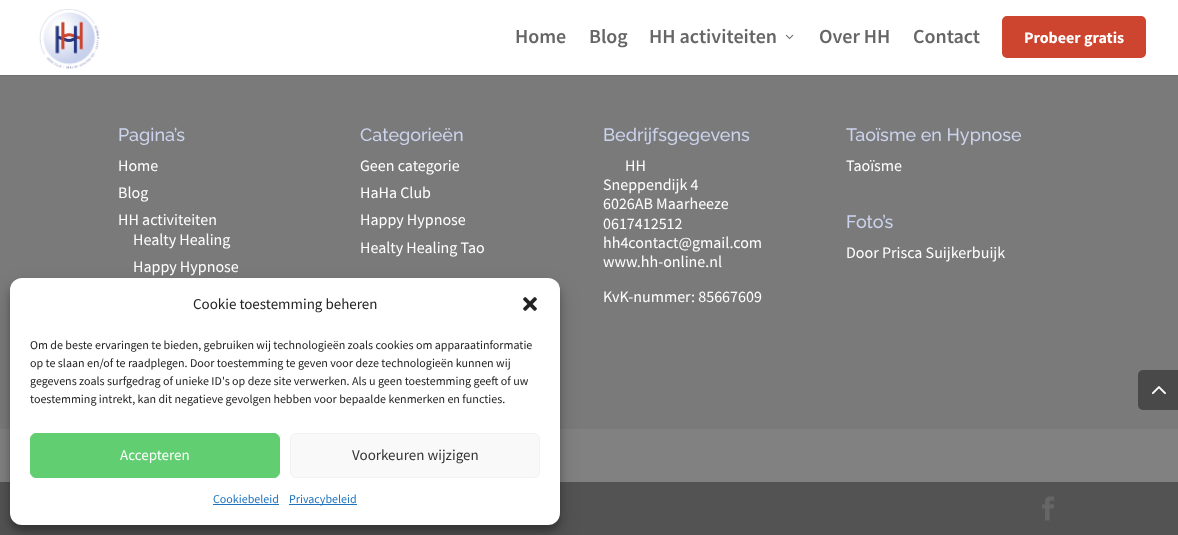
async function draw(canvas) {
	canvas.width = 1178;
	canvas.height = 535;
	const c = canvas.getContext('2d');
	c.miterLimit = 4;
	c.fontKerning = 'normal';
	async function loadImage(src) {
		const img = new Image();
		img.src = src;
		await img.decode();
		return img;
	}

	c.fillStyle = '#7a7a7a';
	c.fillRect(0, 0, 1178, 535);
	c.fillStyle = '#6e6e6e';
	c.fillRect(0, 75, 1178, 1);
	c.fillStyle = '#fff';
	c.fillRect(0, 0, 1178, 75);
	c.drawImage(await loadImage('img1.png'), 39, 9, 61, 60);
	c.font = '600 20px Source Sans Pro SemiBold';
	c.fillStyle = '#666';
	for (const [text, x, y] of [
		['Home', 515, 43],
		['Blog', 589, 43],
		['HH activiteiten', 649, 43],
	]) {
		c.fillText(text, x, y);
	}
	c.drawImage(await loadImage('img2.png'), 785, 34, 9, 5);
	c.fillText('Over HH', 819, 43);
	c.fillText('Contact', 913, 43);
	c.fillStyle = '#cd452e';
	c.beginPath();
	c.roundRect(1005, 19, 138, 36, 2);
	c.fill();
	c.strokeStyle = '#cd452e';
	c.lineWidth = 6;
	c.stroke();
	c.font = 'bold 16px Source Sans Pro';
	c.fillStyle = '#fff';
	c.fillText('Probeer gratis', 1024, 43);
	c.font = '500 18px Raleway';
	c.fillStyle = '#ccd4ed';
	c.fillText('Pagina’s', 118, 141);
	c.font = '16px Source Sans Pro';
	c.fillStyle = '#fff';
	for (const [text, x, y] of [
		['Home', 118, 171],
		['Blog', 118, 198],
		['HH activiteiten', 118, 225],
		['Healty Healing', 133, 245],
		['Happy Hypnose', 133, 272],
	]) {
		c.fillText(text, x, y);
	}
	c.font = '500 18px Raleway';
	c.fillStyle = '#ccd4ed';
	c.fillText('Categorieën', 360, 141);
	c.font = '16px Source Sans Pro';
	c.fillStyle = '#fff';
	for (const [text, x, y] of [
		['Geen categorie', 360, 171],
		['HaHa Club', 360, 198],
		['Happy Hypnose', 360, 225],
		['Healty Healing Tao', 360, 253],
	]) {
		c.fillText(text, x, y);
	}
	c.font = '500 18px Raleway';
	c.fillStyle = '#ccd4ed';
	c.fillText('Bedrijfsgegevens', 603, 141);
	c.font = '16px Source Sans Pro';
	c.fillStyle = '#fff';
	for (const [text, x, y] of [
		['HH', 625, 171],
		['Sneppendijk 4', 603, 190],
		['6026AB Maarheeze', 603, 209],
		['0617412512', 603, 229],
		['hh4contact@gmail.com', 603, 248],
		['www.hh-online.nl', 603, 267],
		['KvK-nummer: 85667609', 603, 302],
	]) {
		c.fillText(text, x, y);
	}
	c.font = '500 18px Raleway';
	c.fillStyle = '#ccd4ed';
	c.fillText('Taoïsme en Hypnose', 846, 141);
	c.font = '16px Source Sans Pro';
	c.fillStyle = '#fff';
	c.fillText('Taoïsme', 846, 171);
	c.font = '500 18px Raleway';
	c.fillStyle = '#ccd4ed';
	c.fillText('Foto’s', 846, 228);
	c.font = '16px Source Sans Pro';
	c.fillStyle = '#fff';
	c.fillText('Door Prisca Suijkerbuijk', 846, 258);
	c.fillStyle = '#818181';
	c.fillRect(0, 429, 1178, 53);
	c.fillStyle = '#535353';
	c.fillRect(0, 482, 1178, 53);
	c.drawImage(await loadImage('img3.png'), 1042, 496, 12, 25);
	c.fillStyle = '#494949';
	c.beginPath();
	c.roundRect(1138, 370, 40, 40, [5, 0, 0, 5]);
	c.fill();
	c.drawImage(await loadImage('img4.png'), 1151, 386, 15, 9);
	c.fillStyle = '#0000003b';
	c.filter = 'blur(3px)';
	c.beginPath();
	c.roundRect(10, 284, 550, 247, 12);
	c.fill();
	c.filter = 'none';
	c.fillStyle = '#00000030';
	c.filter = 'blur(10px)';
	c.beginPath();
	c.roundRect(10, 288, 550, 247, 12);
	c.fill();
	c.filter = 'none';
	c.fillStyle = '#fff';
	c.beginPath();
	c.roundRect(10, 278, 550, 247, 12);
	c.fill();
	c.font = '15px Source Sans Pro';
	c.fillStyle = '#222';
	c.fillText('Cookie toestemming beheren', 193, 309);
	c.drawImage(await loadImage('img5.png'), 523, 297, 14, 14);
	c.font = '12px Source Sans Pro';
	for (const [text, x, y] of [
		['Om de beste ervaringen te bieden, gebruiken wij technologieën zoals cookies om apparaatinformatie', 30, 349],
		['op te slaan en/of te raadplegen. Door toestemming te geven voor deze technologieën kunnen wij', 30, 367],
		['gegevens zoals surfgedrag of unieke ID\'s op deze site verwerken. Als u geen toestemming geeft of uw', 30, 385],
		['toestemming intrekt, kan dit negatieve gevolgen hebben voor bepaalde kenmerken en functies.', 30, 403],
	]) {
		c.fillText(text, x, y);
	}
	c.fillStyle = '#61ce71';
	c.beginPath();
	c.roundRect(30.5, 433.5, 249, 44, 5.5);
	c.fill();
	c.strokeStyle = '#61ce71';
	c.lineWidth = 1;
	c.stroke();
	c.font = '15px Source Sans Pro';
	c.fillStyle = '#fff';
	c.fillText('Accepteren', 120, 460);
	c.fillStyle = '#f9f9f9';
	c.beginPath();
	c.roundRect(290.5, 433.5, 249, 44, 5.5);
	c.fill();
	c.strokeStyle = '#f2f2f2';
	c.stroke();
	c.fillStyle = '#333';
	c.fillText('Voorkeuren wijzigen', 352, 460);
	c.font = '12px Source Sans Pro';
	c.fillStyle = '#1e73be';
	c.fillText('Cookiebeleid', 213, 503);
	c.fillRect(213, 504, 66, 1);
	c.fillRect(289, 504, 68, 1);
	c.fillText('Privacybeleid', 289, 503);
}

draw(document.querySelector('canvas'));
